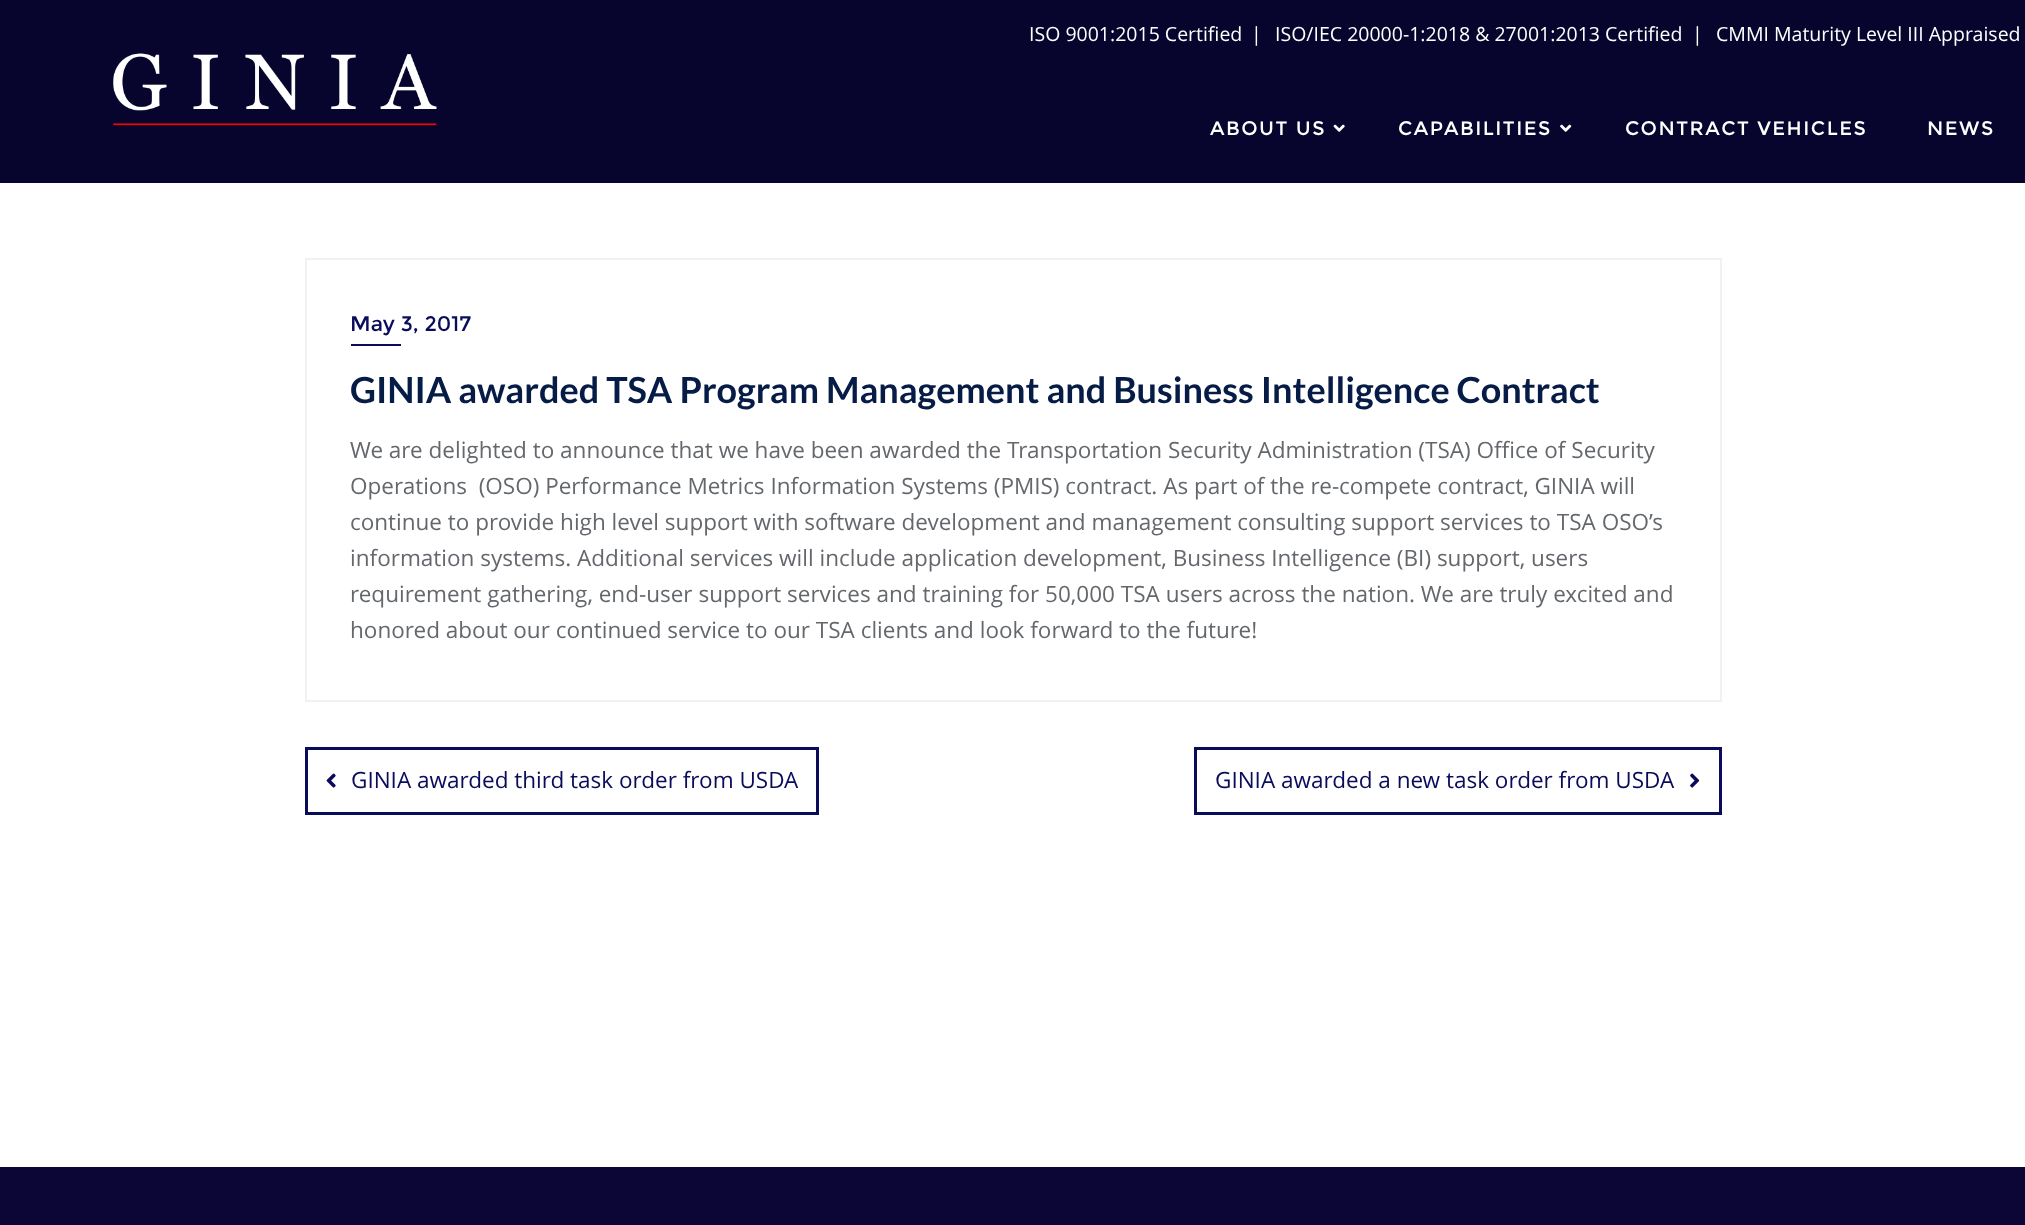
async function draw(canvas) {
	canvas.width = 2025;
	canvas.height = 1225;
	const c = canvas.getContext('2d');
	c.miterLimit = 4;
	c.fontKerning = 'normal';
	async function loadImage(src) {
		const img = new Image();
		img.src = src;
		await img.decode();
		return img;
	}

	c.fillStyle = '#fff';
	c.fillRect(0, 0, 2025, 1225);
	c.fillStyle = '#07052d';
	c.fillRect(0, 0, 2025, 183);
	c.font = '19.5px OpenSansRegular';
	c.fillStyle = '#fff';
	for (const [text, x, y] of [
		['ISO 9001:2015 Certified', 1029, 41],
		['|', 1251, 41],
		['ISO/IEC 20000-1:2018 & 27001:2013 Certified', 1275, 41],
		['|', 1692, 41],
		['CMMI Maturity Level III Appraised', 1716, 41],
	]) {
		c.fillText(text, x, y);
	}
	c.drawImage(await loadImage('img1.png'), 113, 53, 324, 73);
	c.letterSpacing = '1.5px';
	c.font = '19.5px Montserrat';
	c.fillText('ABOUT US', 1210, 135);
	c.drawImage(await loadImage('img2.png'), 1333, 124, 12, 8);
	c.fillText('CAPABILITIES', 1398, 135);
	c.drawImage(await loadImage('img3.png'), 1560, 124, 12, 8);
	c.fillText('CONTRACT VEHICLES', 1625, 135);
	c.fillText('NEWS', 1927, 135);
	c.strokeStyle = '#f1f1f1';
	c.lineWidth = 2;
	c.strokeRect(306, 259, 1415, 442);
	c.letterSpacing = '0px';
	c.font = '21px Montserrat';
	c.fillStyle = '#0a0b5b';
	c.fillText('May 3, 2017', 350, 331);
	c.fillRect(351, 344, 50, 2);
	c.font = 'bold 36px Lato';
	c.fillStyle = '#061c46';
	c.fillText('GINIA awarded TSA Program Management and Business Intelligence Contract', 350, 403);
	c.font = '22.5px OpenSansRegular';
	c.fillStyle = '#64686d';
	for (const [text, x, y] of [
		['We are delighted to announce that we have been awarded the Transportation Security Administration (TSA) Office of Security', 350, 458],
		['Operations  (OSO) Performance Metrics Information Systems (PMIS) contract. As part of the re-compete contract, GINIA will', 350, 494],
		['continue to provide high level support with software development and management consulting support services to TSA OSO’s', 350, 530],
		['information systems. Additional services will include application development, Business Intelligence (BI) support, users', 350, 566],
		['requirement gathering, end-user support services and training for 50,000 TSA users across the nation. We are truly excited and', 350, 602],
		['honored about our continued service to our TSA clients and look forward to the future!', 350, 638],
	]) {
		c.fillText(text, x, y);
	}
	c.strokeStyle = '#0a0b5b';
	c.lineWidth = 3;
	c.strokeRect(306.5, 748.5, 511, 65);
	c.drawImage(await loadImage('img4.png'), 326, 773, 10, 15);
	c.fillStyle = '#0a0b5b';
	c.fillText('GINIA awarded third task order from USDA', 351, 788);
	c.strokeRect(1195.5, 748.5, 525, 65);
	c.fillText('GINIA awarded a new task order from USDA', 1215, 788);
	c.drawImage(await loadImage('img5.png'), 1690, 773, 10, 15);
	c.fillStyle = '#0b0636';
	c.fillRect(0, 1167, 2025, 58);
}

draw(document.querySelector('canvas'));
